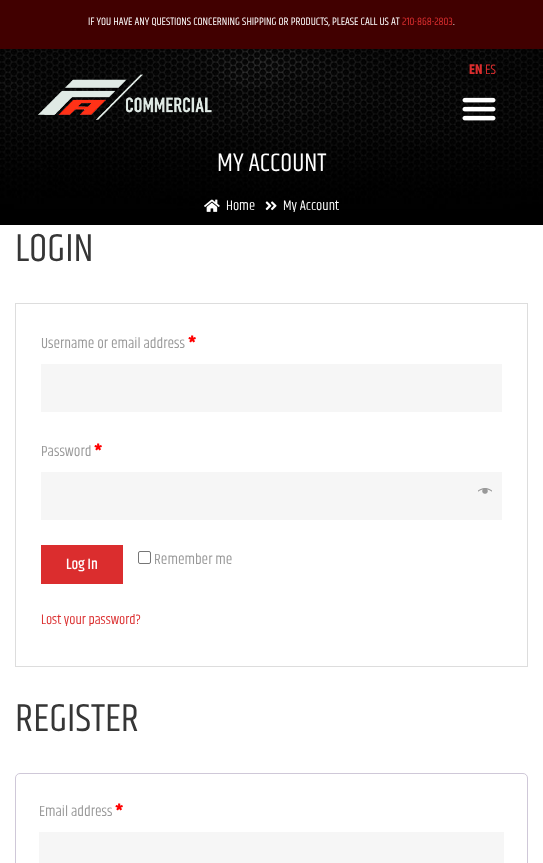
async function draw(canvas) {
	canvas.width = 543;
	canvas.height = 863;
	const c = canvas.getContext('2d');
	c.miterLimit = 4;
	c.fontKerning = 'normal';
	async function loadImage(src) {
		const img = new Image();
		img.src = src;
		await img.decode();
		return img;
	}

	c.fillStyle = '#fff';
	c.fillRect(0, 0, 543, 863);
	c.fillStyle = '#410000';
	c.fillRect(0, 0, 543, 49);
	c.font = '11px Khand';
	c.fillStyle = '#fff';
	c.fillText('IF YOU HAVE ANY QUESTIONS CONCERNING SHIPPING OR PRODUCTS, PLEASE CALL US AT', 88, 25);
	c.fillStyle = '#db2d2e';
	c.fillText('210-868-2803', 402, 25);
	c.fillStyle = '#fff';
	c.fillText('.', 453, 25);
	c.drawImage(await loadImage('img3.png'), 0, 49, 543, 176);
	c.font = 'bold 14px Khand';
	c.fillStyle = '#db2d2e';
	c.fillText('EN', 469, 74);
	c.font = '14px Khand';
	c.fillText('ES', 485, 74);
	c.drawImage(await loadImage('img1.png'), 462, 97, 34, 24);
	c.drawImage(await loadImage('img2.png'), 38, 74, 174, 46);
	c.font = '26px Khand';
	c.fillStyle = '#fff';
	c.fillText('MY ACCOUNT', 217, 171);
	c.drawImage(await loadImage('img4.png'), 204, 199, 16, 13);
	c.font = '14px Khand';
	c.fillText('Home', 226, 210);
	c.drawImage(await loadImage('img5.png'), 265, 201, 12, 10);
	c.fillText('My Account', 283, 210);
	c.font = '40px Khand';
	c.fillStyle = '#363636';
	c.fillText('LOGIN', 15, 261);
	c.strokeStyle = '#ddd';
	c.strokeRect(15.5, 303.5, 512, 363);
	c.font = '15px Khand';
	c.fillStyle = '#999';
	c.fillText('Username or email address', 41, 348);
	c.font = 'bold 15px Khand';
	c.fillStyle = '#f00';
	c.fillText('*', 188, 348);
	c.fillStyle = '#f6f6f6';
	c.fillRect(41, 364, 461, 48);
	c.font = '15px Khand';
	c.fillStyle = '#999';
	c.fillText('Password', 41, 456);
	c.font = 'bold 15px Khand';
	c.fillStyle = '#f00';
	c.fillText('*', 94, 456);
	c.fillStyle = '#f6f6f6';
	c.fillRect(41, 472, 461, 48);
	c.drawImage(await loadImage('img6.png'), 478, 488, 14, 6);
	c.fillStyle = '#db2d2e';
	c.fillRect(41, 545, 82, 39);
	c.font = '500 15px Khand';
	c.fillStyle = '#fff';
	c.fillText('Log In', 66, 569);
	c.beginPath();
	c.roundRect(138.5, 551.5, 12, 12, 1.5);
	c.strokeStyle = '#767676';
	c.stroke();
	c.font = '15px Khand';
	c.fillStyle = '#999';
	c.fillText('Remember me', 154, 564);
	c.font = '14px Khand';
	c.fillStyle = '#db2d2e';
	c.fillText('Lost your password?', 41, 624);
	c.font = '40px Khand';
	c.fillStyle = '#363636';
	c.fillText('REGISTER', 15, 731);
	c.beginPath();
	c.roundRect(15.5, 773.5, 512, 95, 4.5);
	c.strokeStyle = '#cfc8d8';
	c.stroke();
	c.font = '15px Khand';
	c.fillStyle = '#999';
	c.fillText('Email address', 39, 816);
	c.font = 'bold 15px Khand';
	c.fillStyle = '#f00';
	c.fillText('*', 115, 816);
	c.fillStyle = '#f6f6f6';
	c.fillRect(39, 832, 465, 31);
}

draw(document.querySelector('canvas'));
